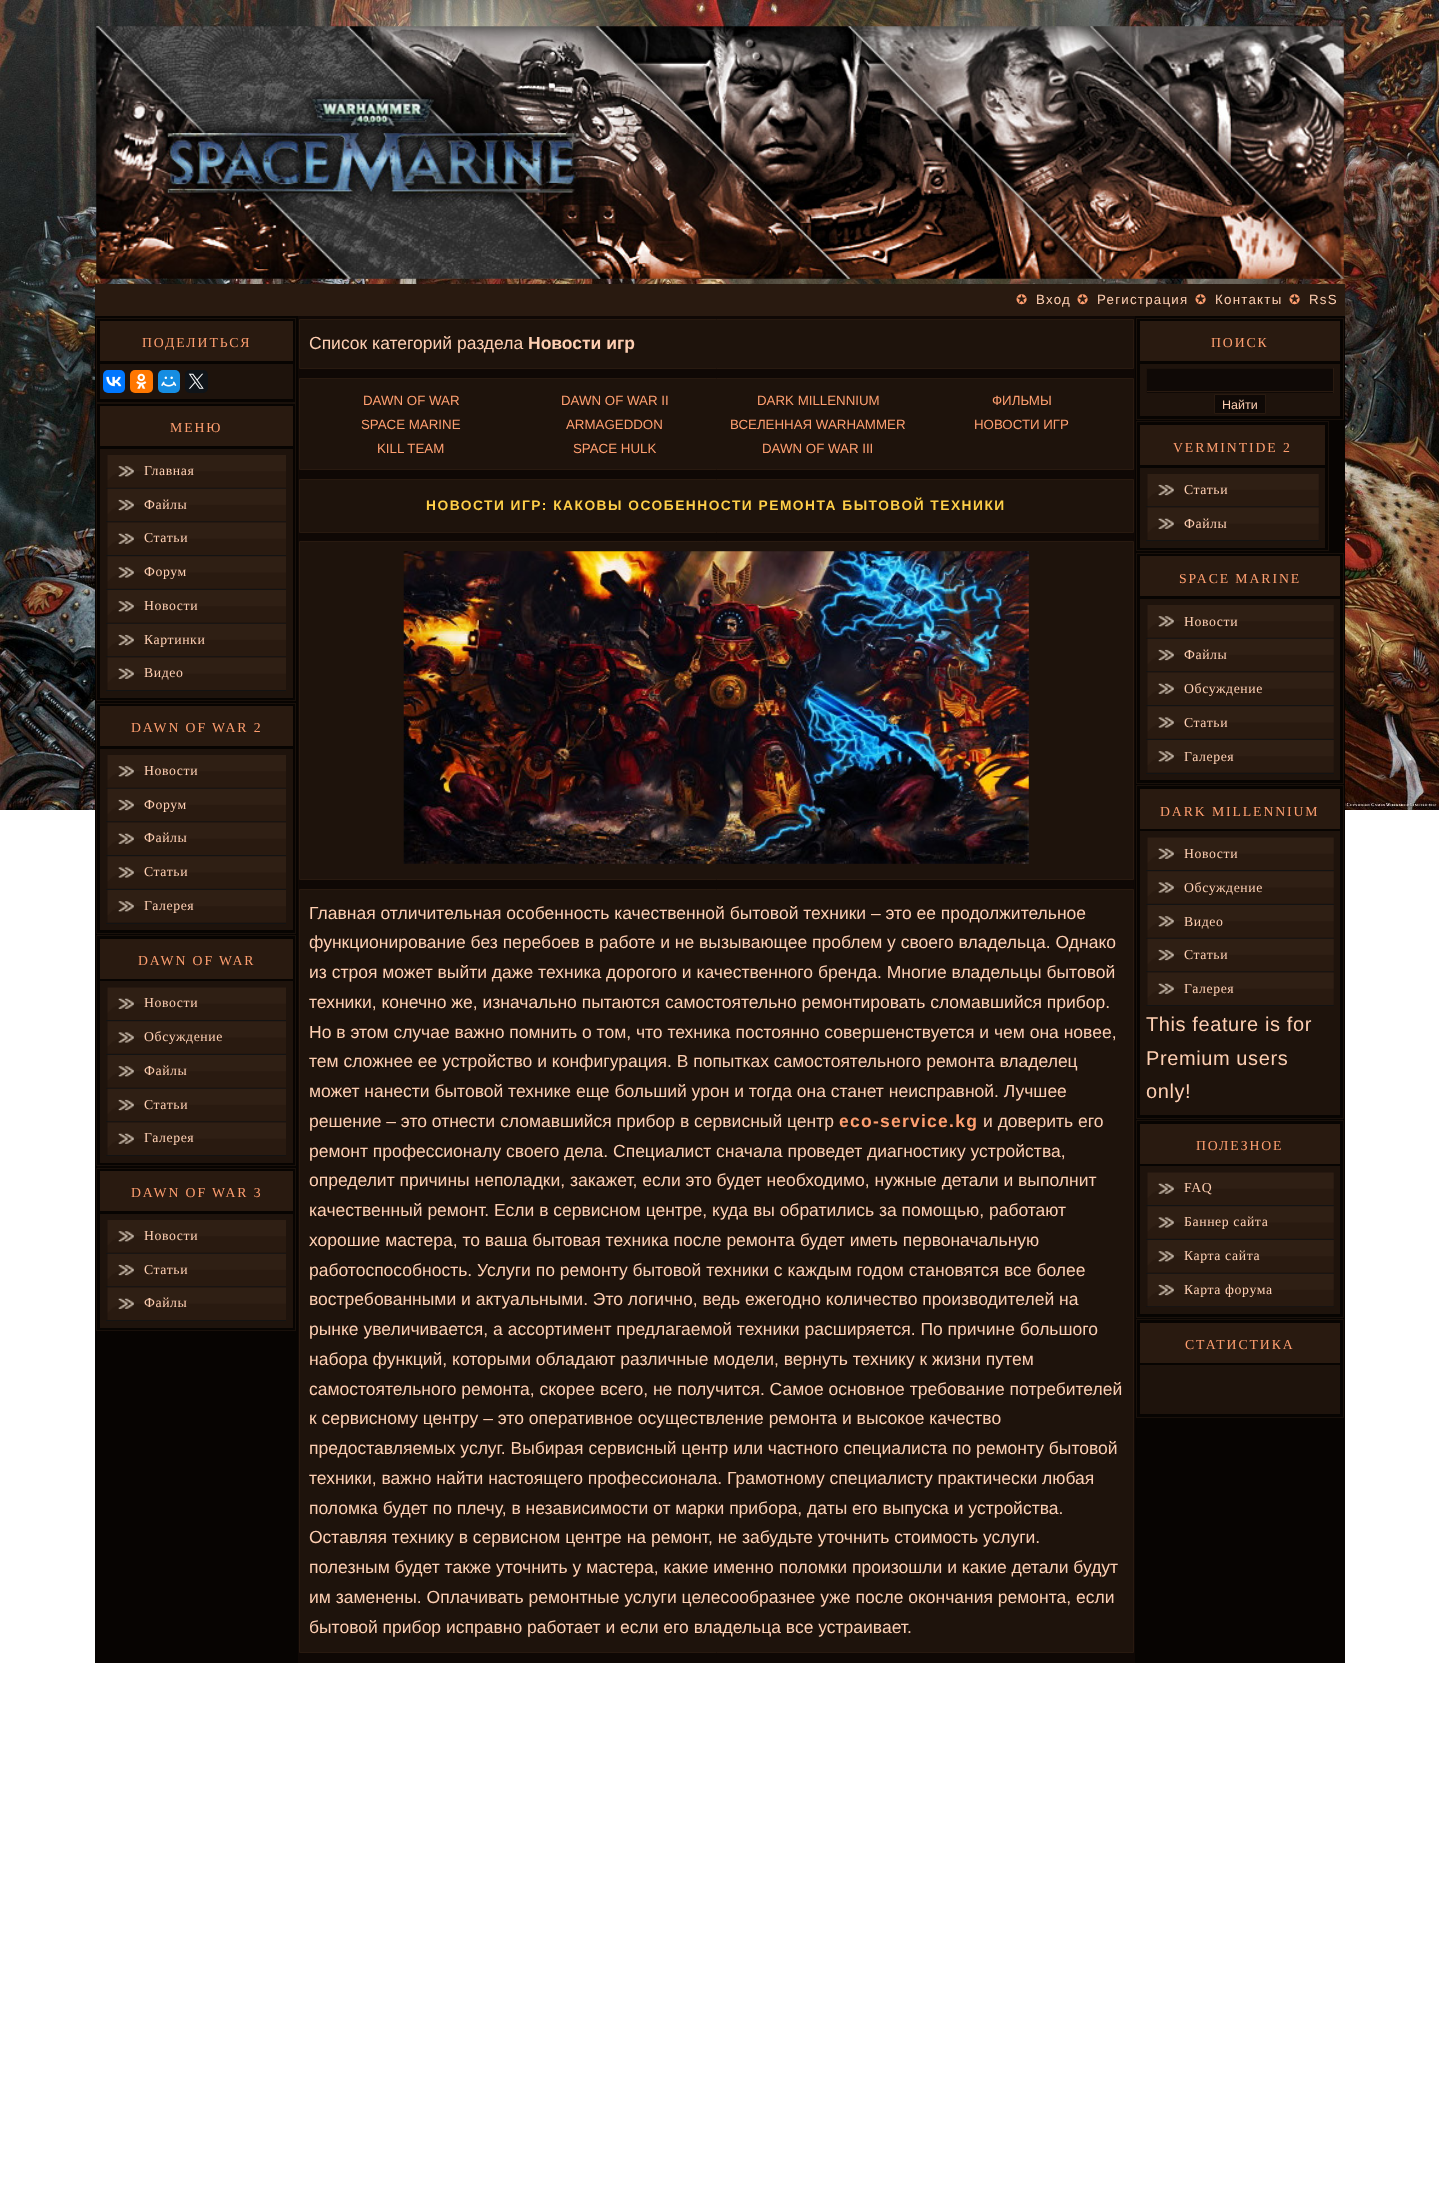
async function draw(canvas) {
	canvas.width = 1439;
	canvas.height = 2208;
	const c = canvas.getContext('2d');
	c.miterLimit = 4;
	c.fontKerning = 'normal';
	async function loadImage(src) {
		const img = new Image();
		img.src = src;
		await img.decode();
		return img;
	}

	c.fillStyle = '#fff';
	c.fillRect(0, 0, 1439, 2208);
	c.drawImage(await loadImage('img1.png'), 0, 0, 1439, 810);
	c.drawImage(await loadImage('img2.png'), 96, 26, 1248, 253);
	c.fillStyle = '#291a10';
	c.fillRect(95, 284, 1250, 32);
	c.letterSpacing = '2px';
	c.font = '13.3px DejaVu Sans';
	c.fillStyle = '#ff9f70';
	c.fillText('✪', 1016, 304);
	c.letterSpacing = '1.25px';
	c.font = '13.3px Liberation Sans';
	c.fillStyle = '#ffcfb2';
	c.fillText('Вход', 1036, 304);
	c.letterSpacing = '2px';
	c.font = '13.3px DejaVu Sans';
	c.fillStyle = '#ff9f70';
	c.fillText('✪', 1077, 304);
	c.letterSpacing = '1.25px';
	c.font = '13.3px Liberation Sans';
	c.fillStyle = '#ffcfb2';
	c.fillText('Регистрация', 1097, 304);
	c.letterSpacing = '2px';
	c.font = '13.3px DejaVu Sans';
	c.fillStyle = '#ff9f70';
	c.fillText('✪', 1195, 304);
	c.letterSpacing = '1.25px';
	c.font = '13.3px Liberation Sans';
	c.fillStyle = '#ffcfb2';
	c.fillText('Контакты', 1215, 304);
	c.letterSpacing = '2px';
	c.font = '13.3px DejaVu Sans';
	c.fillStyle = '#ff9f70';
	c.fillText('✪', 1289, 304);
	c.letterSpacing = '1.25px';
	c.font = '13.3px Liberation Sans';
	c.fillStyle = '#ffcfb2';
	c.fillText('RsS', 1309, 304);
	c.fillStyle = '#070402';
	c.fillRect(95, 316, 203, 1347);
	c.strokeStyle = '#19100a';
	c.strokeRect(96.5, 318.5, 199, 84);
	c.fillStyle = '#291a10';
	c.fillRect(100, 321, 193, 40);
	c.letterSpacing = '1.9px';
	c.font = '13.75px Liberation Serif';
	c.fillStyle = '#ff9f70';
	c.fillText('ПОДЕЛИТЬСЯ', 142, 347);
	c.fillStyle = '#1e130c';
	c.fillRect(100, 364, 193, 35);
	c.fillStyle = '#07f';
	c.beginPath();
	c.roundRect(103, 370, 22, 23, 5);
	c.fill();
	c.drawImage(await loadImage('img3.png'), 106, 376, 16, 11);
	c.fillStyle = '#f70';
	c.beginPath();
	c.roundRect(130, 370, 23, 23, 5);
	c.fill();
	c.drawImage(await loadImage('img4.png'), 136, 373, 11, 16);
	c.fillStyle = '#168de2';
	c.beginPath();
	c.roundRect(158, 370, 22, 23, 5);
	c.fill();
	c.drawImage(await loadImage('img5.png'), 161, 376, 16, 11);
	c.fillStyle = '#0f1419';
	c.beginPath();
	c.roundRect(185, 370, 23, 23, 5);
	c.fill();
	c.drawImage(await loadImage('img6.png'), 188, 373, 16, 16);
	c.strokeRect(96.5, 403.5, 199, 297);
	c.fillStyle = '#291a10';
	c.fillRect(100, 406, 193, 40);
	c.fillStyle = '#ff9f70';
	c.fillText('МЕНЮ', 170, 432);
	c.fillStyle = '#1e130c';
	c.fillRect(100, 449, 193, 249);
	c.fillStyle = '#131313';
	c.fillRect(106, 488, 180, 1);
	c.drawImage(await loadImage('img7.png'), 107, 455, 179, 33);
	c.letterSpacing = '0.6px';
	c.fillStyle = '#ffcfb2';
	c.fillText('Главная', 144, 475);
	c.fillStyle = '#131313';
	c.fillRect(106, 521, 180, 1);
	c.drawImage(await loadImage('img8.png'), 107, 488, 179, 34);
	c.fillStyle = '#ffcfb2';
	c.fillText('Файлы', 144, 509);
	c.fillStyle = '#131313';
	c.fillRect(106, 555, 180, 1);
	c.drawImage(await loadImage('img9.png'), 107, 522, 179, 33);
	c.fillStyle = '#ffcfb2';
	c.fillText('Статьи', 144, 542);
	c.fillStyle = '#131313';
	c.fillRect(106, 589, 180, 1);
	c.drawImage(await loadImage('img10.png'), 107, 556, 179, 33);
	c.fillStyle = '#ffcfb2';
	c.fillText('Форум', 144, 576);
	c.fillStyle = '#131313';
	c.fillRect(106, 623, 180, 1);
	c.drawImage(await loadImage('img7.png'), 107, 590, 179, 33);
	c.fillStyle = '#ffcfb2';
	c.fillText('Новости', 144, 610);
	c.fillStyle = '#131313';
	c.fillRect(106, 656, 180, 1);
	c.drawImage(await loadImage('img8.png'), 107, 623, 179, 34);
	c.fillStyle = '#ffcfb2';
	c.fillText('Картинки', 144, 644);
	c.fillStyle = '#131313';
	c.fillRect(106, 690, 180, 1);
	c.drawImage(await loadImage('img9.png'), 107, 657, 179, 33);
	c.fillStyle = '#ffcfb2';
	c.fillText('Видео', 144, 677);
	c.strokeRect(96.5, 703.5, 199, 230);
	c.fillStyle = '#291a10';
	c.fillRect(100, 706, 193, 40);
	c.letterSpacing = '1.9px';
	c.fillStyle = '#ff9f70';
	c.fillText('DAWN OF WAR 2', 131, 732);
	c.fillStyle = '#1e130c';
	c.fillRect(100, 749, 193, 181);
	c.fillStyle = '#131313';
	c.fillRect(106, 788, 180, 1);
	c.drawImage(await loadImage('img7.png'), 107, 755, 179, 33);
	c.letterSpacing = '0.6px';
	c.fillStyle = '#ffcfb2';
	c.fillText('Новости', 144, 775);
	c.fillStyle = '#131313';
	c.fillRect(106, 821, 180, 1);
	c.drawImage(await loadImage('img8.png'), 107, 788, 179, 34);
	c.fillStyle = '#ffcfb2';
	c.fillText('Форум', 144, 809);
	c.fillStyle = '#131313';
	c.fillRect(106, 855, 180, 1);
	c.drawImage(await loadImage('img9.png'), 107, 822, 179, 33);
	c.fillStyle = '#ffcfb2';
	c.fillText('Файлы', 144, 842);
	c.fillStyle = '#131313';
	c.fillRect(106, 889, 180, 1);
	c.drawImage(await loadImage('img10.png'), 107, 856, 179, 33);
	c.fillStyle = '#ffcfb2';
	c.fillText('Статьи', 144, 876);
	c.fillStyle = '#131313';
	c.fillRect(106, 923, 180, 1);
	c.drawImage(await loadImage('img7.png'), 107, 890, 179, 33);
	c.fillStyle = '#ffcfb2';
	c.fillText('Галерея', 144, 910);
	c.strokeRect(96.5, 935.5, 199, 230);
	c.fillStyle = '#291a10';
	c.fillRect(100, 939, 193, 40);
	c.letterSpacing = '1.9px';
	c.fillStyle = '#ff9f70';
	c.fillText('DAWN OF WAR', 138, 965);
	c.fillStyle = '#1e130c';
	c.fillRect(100, 981, 193, 182);
	c.fillStyle = '#131313';
	c.fillRect(106, 1020, 180, 1);
	c.drawImage(await loadImage('img9.png'), 107, 987, 179, 33);
	c.letterSpacing = '0.6px';
	c.fillStyle = '#ffcfb2';
	c.fillText('Новости', 144, 1007);
	c.fillStyle = '#131313';
	c.fillRect(106, 1054, 180, 1);
	c.drawImage(await loadImage('img10.png'), 107, 1021, 179, 33);
	c.fillStyle = '#ffcfb2';
	c.fillText('Обсуждение', 144, 1041);
	c.fillStyle = '#131313';
	c.fillRect(106, 1088, 180, 1);
	c.drawImage(await loadImage('img7.png'), 107, 1055, 179, 33);
	c.fillStyle = '#ffcfb2';
	c.fillText('Файлы', 144, 1075);
	c.fillStyle = '#131313';
	c.fillRect(106, 1121, 180, 1);
	c.drawImage(await loadImage('img8.png'), 107, 1088, 179, 34);
	c.fillStyle = '#ffcfb2';
	c.fillText('Статьи', 144, 1109);
	c.fillStyle = '#131313';
	c.fillRect(106, 1155, 180, 1);
	c.drawImage(await loadImage('img9.png'), 107, 1122, 179, 33);
	c.fillStyle = '#ffcfb2';
	c.fillText('Галерея', 144, 1142);
	c.strokeRect(96.5, 1168.5, 199, 162);
	c.fillStyle = '#291a10';
	c.fillRect(100, 1171, 193, 40);
	c.letterSpacing = '1.9px';
	c.fillStyle = '#ff9f70';
	c.fillText('DAWN OF WAR 3', 131, 1197);
	c.fillStyle = '#1e130c';
	c.fillRect(100, 1214, 193, 114);
	c.fillStyle = '#131313';
	c.fillRect(106, 1253, 180, 1);
	c.drawImage(await loadImage('img7.png'), 107, 1220, 179, 33);
	c.letterSpacing = '0.6px';
	c.fillStyle = '#ffcfb2';
	c.fillText('Новости', 144, 1240);
	c.fillStyle = '#131313';
	c.fillRect(106, 1286, 180, 1);
	c.drawImage(await loadImage('img8.png'), 107, 1253, 179, 34);
	c.fillStyle = '#ffcfb2';
	c.fillText('Статьи', 144, 1274);
	c.fillStyle = '#131313';
	c.fillRect(106, 1320, 180, 1);
	c.drawImage(await loadImage('img9.png'), 107, 1287, 179, 33);
	c.fillStyle = '#ffcfb2';
	c.fillText('Файлы', 144, 1307);
	c.fillStyle = '#0f0805';
	c.fillRect(298, 316, 837, 1347);
	c.fillStyle = '#1e130c';
	c.beginPath();
	c.rect(299.5, 319.5, 834, 49);
	c.fill();
	c.strokeStyle = '#291a10';
	c.stroke();
	c.letterSpacing = '0px';
	c.font = '17.5px Liberation Sans';
	c.fillStyle = '#ffcfb2';
	c.fillText('Список категорий раздела', 309, 349);
	c.font = 'bold 17.5px Liberation Sans';
	c.fillText('Новости игр', 528, 349);
	c.fillStyle = '#1e130c';
	c.beginPath();
	c.rect(299.5, 378.5, 834, 91);
	c.fill();
	c.stroke();
	c.font = '13.3px Liberation Sans';
	c.fillStyle = '#ff9f70';
	for (const [text, x, y] of [
		['DAWN OF WAR', 363, 405],
		['DAWN OF WAR II', 561, 405],
		['DARK MILLENNIUM', 757, 405],
		['ФИЛЬМЫ', 992, 405],
		['SPACE MARINE', 361, 429],
		['ARMAGEDDON', 566, 429],
		['ВСЕЛЕННАЯ WARHAMMER', 730, 429],
		['НОВОСТИ ИГР', 974, 429],
		['KILL TEAM', 377, 453],
		['SPACE HULK', 573, 453],
		['DAWN OF WAR III', 762, 453],
	]) {
		c.fillText(text, x, y);
	}
	c.fillStyle = '#1e130c';
	c.beginPath();
	c.rect(299.5, 479.5, 834, 53);
	c.fill();
	c.stroke();
	c.letterSpacing = '1.5px';
	c.font = 'bold 13.75px Liberation Sans';
	c.fillStyle = '#ffcf48';
	c.fillText('НОВОСТИ ИГР: КАКОВЫ ОСОБЕННОСТИ РЕМОНТА БЫТОВОЙ ТЕХНИКИ', 426, 510);
	c.fillStyle = '#1e130c';
	c.beginPath();
	c.rect(299.5, 541.5, 834, 338);
	c.fill();
	c.stroke();
	c.drawImage(await loadImage('img11.png'), 403, 551, 626, 313);
	c.beginPath();
	c.rect(299.5, 889.5, 834, 763);
	c.fill();
	c.stroke();
	c.letterSpacing = '0px';
	c.font = '17.5px Liberation Sans';
	c.fillStyle = '#ffcfb2';
	for (const [text, x, y] of [
		['Главная отличительная особенность качественной бытовой техники – это ее продолжительное', 309, 919],
		['функционирование без перебоев в работе и не вызывающее проблем у своего владельца. Однако', 309, 948],
		['из строя может выйти даже техника дорогого и качественного бренда. Многие владельцы бытовой', 309, 978],
		['техники, конечно же, изначально пытаются самостоятельно ремонтировать сломавшийся прибор.', 309, 1008],
		['Но в этом случае важно помнить о том, что техника постоянно совершенствуется и чем она новее,', 309, 1038],
		['тем сложнее ее устройство и конфигурация. В попытках самостоятельного ремонта владелец', 309, 1067],
		['может нанести бытовой технике еще больший урон и тогда она станет неисправной. Лучшее', 309, 1097],
		['решение – это отнести сломавшийся прибор в сервисный центр', 309, 1127],
	]) {
		c.fillText(text, x, y);
	}
	c.letterSpacing = '1.25px';
	c.font = 'bold 17.5px Liberation Sans';
	c.fillStyle = '#ff9f70';
	c.fillText('eco-service.kg', 839, 1127);
	c.letterSpacing = '0px';
	c.font = '17.5px Liberation Sans';
	c.fillStyle = '#ffcfb2';
	for (const [text, x, y] of [
		['и доверить его', 983, 1127],
		['ремонт профессионалу своего дела. Специалист сначала проведет диагностику устройства,', 309, 1157],
		['определит причины неполадки, закажет, если это будет необходимо, нужные детали и выполнит', 309, 1186],
		['качественный ремонт. Если в сервисном центре, куда вы обратились за помощью, работают', 309, 1216],
		['хорошие мастера, то ваша бытовая техника после ремонта будет иметь первоначальную', 309, 1246],
		['работоспособность. Услуги по ремонту бытовой техники с каждым годом становятся все более', 309, 1276],
		['востребованными и актуальными. Это логично, ведь ежегодно количество производителей на', 309, 1305],
		['рынке увеличивается, а ассортимент предлагаемой техники расширяется. По причине большого', 309, 1335],
		['набора функций, которыми обладают различные модели, вернуть технику к жизни путем', 309, 1365],
		['самостоятельного ремонта, скорее всего, не получится. Самое основное требование потребителей', 309, 1395],
		['к сервисному центру – это оперативное осуществление ремонта и высокое качество', 309, 1424],
		['предоставляемых услуг. Выбирая сервисный центр или частного специалиста по ремонту бытовой', 309, 1454],
		['техники, важно найти настоящего профессионала. Грамотному специалисту практически любая', 309, 1484],
		['поломка будет по плечу, в независимости от марки прибора, даты его выпуска и устройства.', 309, 1514],
		['Оставляя технику в сервисном центре на ремонт, не забудьте уточнить стоимость услуги.', 309, 1543],
		['полезным будет также уточнить у мастера, какие именно поломки произошли и какие детали будут', 309, 1573],
		['им заменены. Оплачивать ремонтные услуги целесообразнее уже после окончания ремонта, если', 309, 1603],
		['бытовой прибор исправно работает и если его владельца все устраивает.', 309, 1633],
	]) {
		c.fillText(text, x, y);
	}
	c.fillStyle = '#070402';
	c.fillRect(1135, 316, 210, 1347);
	c.strokeStyle = '#19100a';
	c.strokeRect(1136.5, 318.5, 207, 101);
	c.fillStyle = '#291a10';
	c.fillRect(1140, 321, 200, 40);
	c.letterSpacing = '1.9px';
	c.font = '13.75px Liberation Serif';
	c.fillStyle = '#ff9f70';
	c.fillText('ПОИСК', 1211, 347);
	for (const [x, y, w, h, color] of [
		[1140, 364, 200, 52, '#1e130c'],
		[1147, 369, 186, 24, '#0f0906'],
		[1146, 368, 188, 1, '#1b110b'],
		[1333, 368, 1, 25, '#291a10'],
		[1146, 391, 188, 1, '#291a10'],
		[1146, 368, 1, 25, '#1b110b'],
	]) {
		c.fillStyle = color;
		c.fillRect(x, y, w, h);
	}
	c.fillStyle = '#0f0906';
	c.beginPath();
	c.rect(1214.5, 394.5, 51, 19);
	c.fill();
	c.strokeStyle = '#291a10';
	c.stroke();
	c.letterSpacing = '0px';
	c.font = '12.5px Liberation Sans';
	c.fillStyle = '#ffcfb2';
	c.fillText('Найти', 1222, 409);
	c.strokeStyle = '#19100a';
	c.strokeRect(1136.5, 421.5, 192, 129);
	c.fillStyle = '#291a10';
	c.fillRect(1140, 425, 185, 40);
	c.letterSpacing = '1.9px';
	c.font = '13.75px Liberation Serif';
	c.fillStyle = '#ff9f70';
	c.fillText('VERMINTIDE 2', 1173, 452);
	c.fillStyle = '#1e130c';
	c.fillRect(1140, 468, 185, 80);
	c.fillStyle = '#131313';
	c.fillRect(1146, 506, 173, 1);
	c.drawImage(await loadImage('img12.png'), 1147, 474, 172, 33);
	c.letterSpacing = '0.6px';
	c.fillStyle = '#ffcfb2';
	c.fillText('Статьи', 1184, 494);
	c.fillStyle = '#131313';
	c.fillRect(1146, 540, 173, 1);
	c.drawImage(await loadImage('img13.png'), 1147, 507, 172, 33);
	c.fillStyle = '#ffcfb2';
	c.fillText('Файлы', 1184, 528);
	c.strokeRect(1136.5, 553.5, 207, 230);
	c.fillStyle = '#291a10';
	c.fillRect(1140, 556, 200, 40);
	c.letterSpacing = '1.9px';
	c.fillStyle = '#ff9f70';
	c.fillText('SPACE MARINE', 1179, 583);
	c.fillStyle = '#1e130c';
	c.fillRect(1140, 599, 200, 181);
	c.fillStyle = '#131313';
	c.fillRect(1146, 638, 188, 1);
	c.drawImage(await loadImage('img14.png'), 1147, 605, 187, 33);
	c.letterSpacing = '0.6px';
	c.fillStyle = '#ffcfb2';
	c.fillText('Новости', 1184, 626);
	c.fillStyle = '#131313';
	c.fillRect(1146, 671, 188, 1);
	c.drawImage(await loadImage('img15.png'), 1147, 638, 187, 34);
	c.fillStyle = '#ffcfb2';
	c.fillText('Файлы', 1184, 659);
	c.fillStyle = '#131313';
	c.fillRect(1146, 705, 188, 1);
	c.drawImage(await loadImage('img16.png'), 1147, 672, 187, 33);
	c.fillStyle = '#ffcfb2';
	c.fillText('Обсуждение', 1184, 693);
	c.fillStyle = '#131313';
	c.fillRect(1146, 739, 188, 1);
	c.drawImage(await loadImage('img17.png'), 1147, 706, 187, 33);
	c.fillStyle = '#ffcfb2';
	c.fillText('Статьи', 1184, 727);
	c.fillStyle = '#131313';
	c.fillRect(1146, 773, 188, 1);
	c.drawImage(await loadImage('img14.png'), 1147, 740, 187, 33);
	c.fillStyle = '#ffcfb2';
	c.fillText('Галерея', 1184, 761);
	c.strokeRect(1136.5, 785.5, 207, 333);
	c.fillStyle = '#291a10';
	c.fillRect(1140, 789, 200, 40);
	c.letterSpacing = '1.9px';
	c.fillStyle = '#ff9f70';
	c.fillText('DARK MILLENNIUM', 1160, 816);
	c.fillStyle = '#1e130c';
	c.fillRect(1140, 831, 200, 284);
	c.fillStyle = '#131313';
	c.fillRect(1146, 870, 188, 1);
	c.drawImage(await loadImage('img16.png'), 1147, 837, 187, 33);
	c.letterSpacing = '0.6px';
	c.fillStyle = '#ffcfb2';
	c.fillText('Новости', 1184, 858);
	c.fillStyle = '#131313';
	c.fillRect(1146, 904, 188, 1);
	c.drawImage(await loadImage('img17.png'), 1147, 871, 187, 33);
	c.fillStyle = '#ffcfb2';
	c.fillText('Обсуждение', 1184, 892);
	c.fillStyle = '#131313';
	c.fillRect(1146, 938, 188, 1);
	c.drawImage(await loadImage('img14.png'), 1147, 905, 187, 33);
	c.fillStyle = '#ffcfb2';
	c.fillText('Видео', 1184, 926);
	c.fillStyle = '#131313';
	c.fillRect(1146, 971, 188, 1);
	c.drawImage(await loadImage('img15.png'), 1147, 938, 187, 34);
	c.fillStyle = '#ffcfb2';
	c.fillText('Статьи', 1184, 959);
	c.fillStyle = '#131313';
	c.fillRect(1146, 1005, 188, 1);
	c.drawImage(await loadImage('img16.png'), 1147, 972, 187, 33);
	c.fillStyle = '#ffcfb2';
	c.fillText('Галерея', 1184, 993);
	c.font = '20px Liberation Sans';
	for (const [text, x, y] of [
		['This feature is for', 1146, 1031],
		['Premium users', 1146, 1065],
		['only!', 1146, 1098],
	]) {
		c.fillText(text, x, y);
	}
	c.strokeRect(1136.5, 1120.5, 207, 197);
	c.fillStyle = '#291a10';
	c.fillRect(1140, 1124, 200, 40);
	c.letterSpacing = '1.9px';
	c.font = '13.75px Liberation Serif';
	c.fillStyle = '#ff9f70';
	c.fillText('ПОЛЕЗНОЕ', 1196, 1150);
	c.fillStyle = '#1e130c';
	c.fillRect(1140, 1166, 200, 148);
	c.fillStyle = '#131313';
	c.fillRect(1146, 1205, 188, 1);
	c.drawImage(await loadImage('img18.png'), 1147, 1172, 187, 33);
	c.letterSpacing = '0.6px';
	c.fillStyle = '#ffcfb2';
	c.fillText('FAQ', 1184, 1192);
	c.fillStyle = '#131313';
	c.fillRect(1146, 1239, 188, 1);
	c.drawImage(await loadImage('img17.png'), 1147, 1206, 187, 33);
	c.fillStyle = '#ffcfb2';
	c.fillText('Баннер сайта', 1184, 1226);
	c.fillStyle = '#131313';
	c.fillRect(1146, 1273, 188, 1);
	c.drawImage(await loadImage('img14.png'), 1147, 1240, 187, 33);
	c.fillStyle = '#ffcfb2';
	c.fillText('Карта сайта', 1184, 1260);
	c.fillStyle = '#131313';
	c.fillRect(1146, 1306, 188, 1);
	c.drawImage(await loadImage('img15.png'), 1147, 1273, 187, 34);
	c.fillStyle = '#ffcfb2';
	c.fillText('Карта форума', 1184, 1294);
	c.strokeRect(1136.5, 1319.5, 207, 98);
	c.fillStyle = '#291a10';
	c.fillRect(1140, 1323, 200, 40);
	c.letterSpacing = '1.9px';
	c.fillStyle = '#ff9f70';
	c.fillText('СТАТИСТИКА', 1185, 1349);
	c.fillStyle = '#1e130c';
	c.fillRect(1140, 1365, 200, 49);
}

draw(document.querySelector('canvas'));
